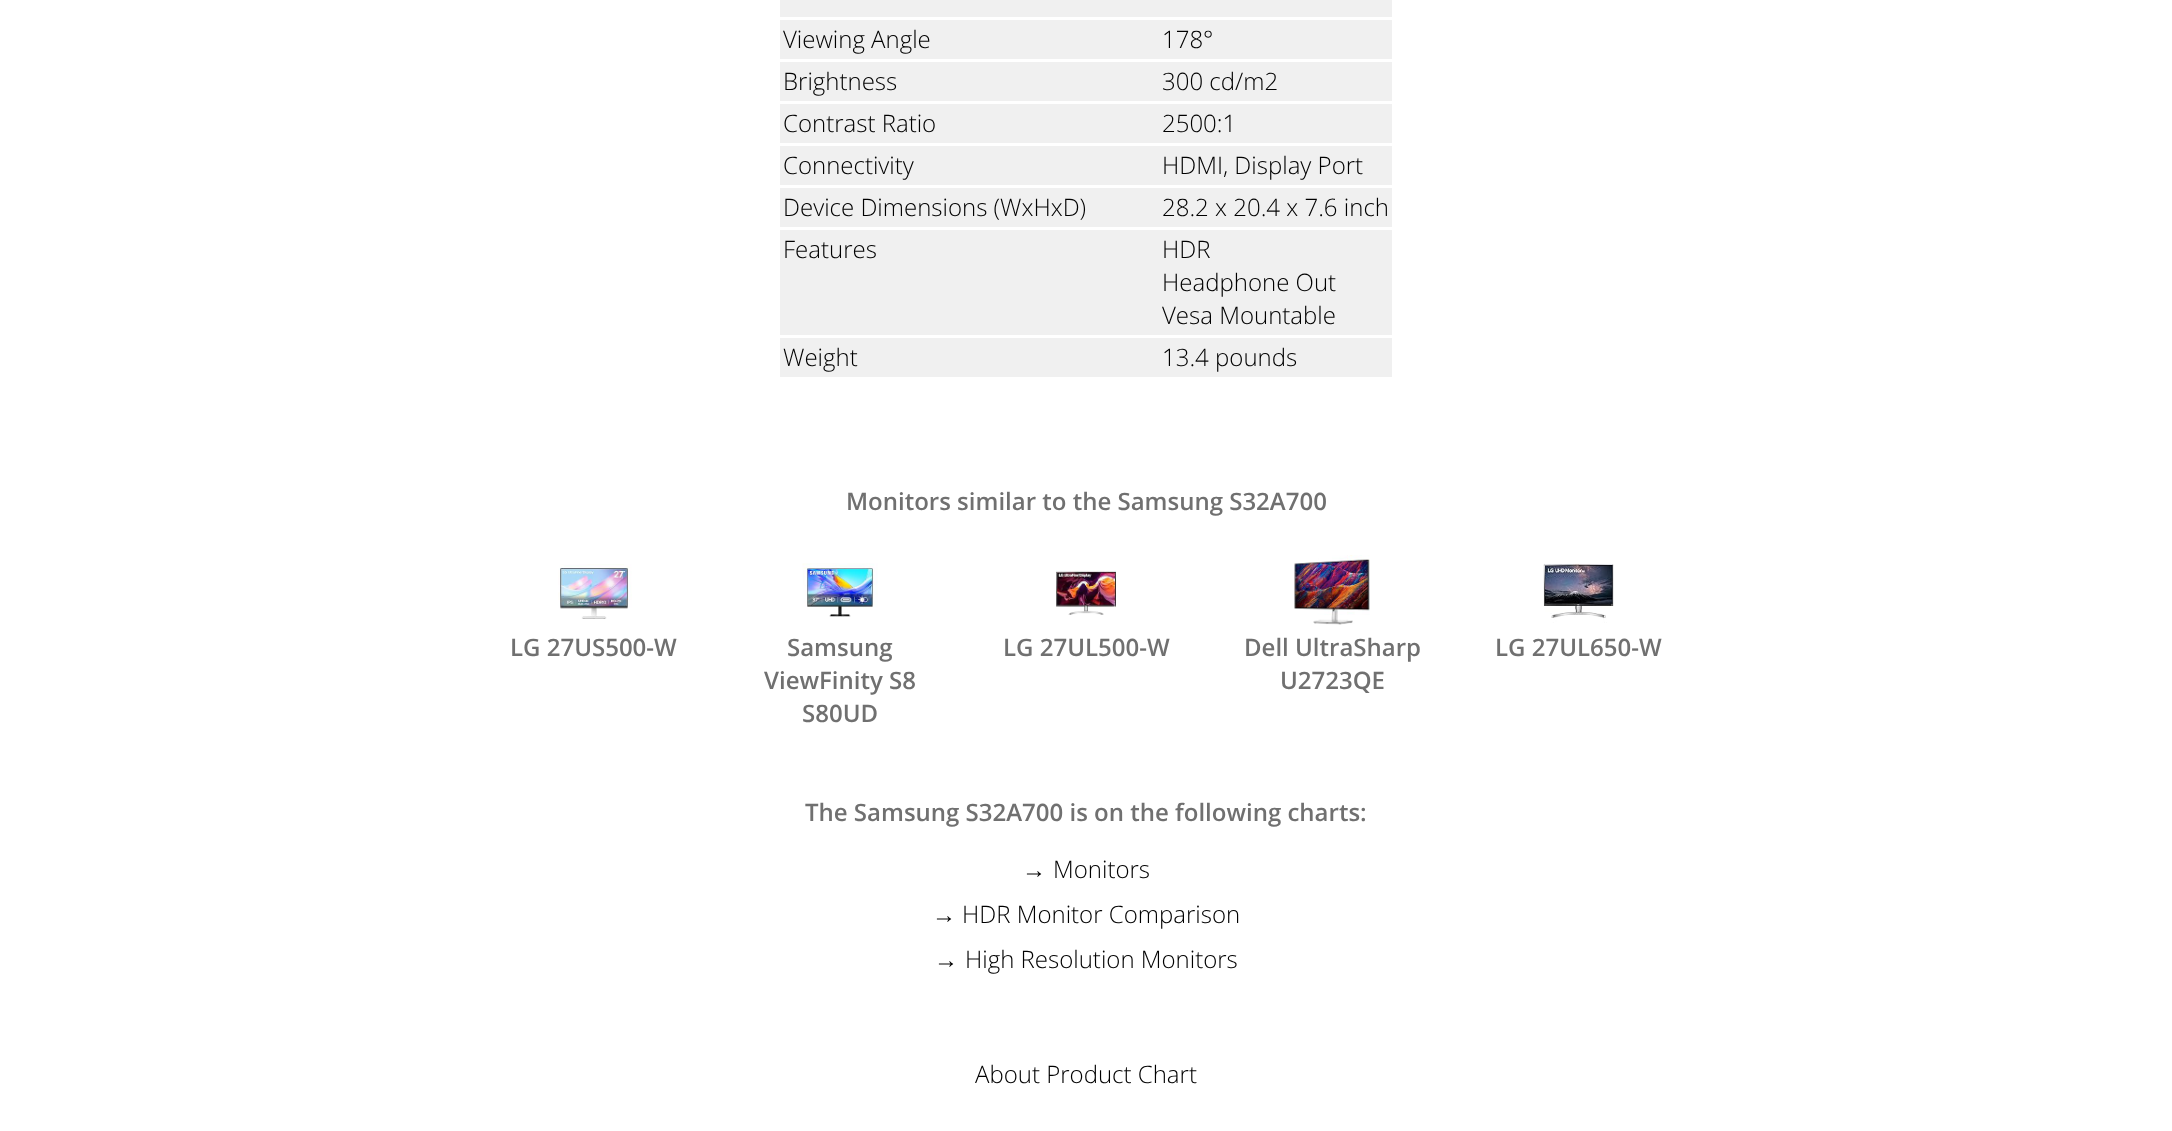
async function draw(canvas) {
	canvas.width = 2172;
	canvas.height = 1131;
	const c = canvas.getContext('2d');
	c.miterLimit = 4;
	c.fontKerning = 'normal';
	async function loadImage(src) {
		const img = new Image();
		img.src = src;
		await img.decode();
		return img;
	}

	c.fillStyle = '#fff';
	c.fillRect(0, 0, 2172, 1131);
	c.fillStyle = '#f0f0f0';
	c.fillRect(780, 0, 612, 17);
	c.fillRect(780, 20, 612, 39);
	c.font = '300 24px Open Sans';
	c.fillStyle = '#000';
	c.fillText('Viewing Angle', 783, 48);
	c.fillText('178°', 1162, 48);
	c.fillStyle = '#f0f0f0';
	c.fillRect(780, 62, 612, 39);
	c.fillStyle = '#000';
	c.fillText('Brightness', 783, 90);
	c.fillText('300 cd/m2', 1162, 90);
	c.fillStyle = '#f0f0f0';
	c.fillRect(780, 104, 612, 39);
	c.fillStyle = '#000';
	c.fillText('Contrast Ratio', 783, 132);
	c.fillText('2500:1', 1162, 132);
	c.fillStyle = '#f0f0f0';
	c.fillRect(780, 146, 612, 39);
	c.fillStyle = '#000';
	c.fillText('Connectivity', 783, 174);
	c.fillText('HDMI, Display Port', 1162, 174);
	c.fillStyle = '#f0f0f0';
	c.fillRect(780, 188, 612, 39);
	c.fillStyle = '#000';
	c.fillText('Device Dimensions (WxHxD)', 783, 216);
	c.fillText('28.2 x 20.4 x 7.6 inch', 1162, 216);
	c.fillStyle = '#f0f0f0';
	c.fillRect(780, 230, 612, 105);
	c.fillStyle = '#000';
	for (const [text, x, y] of [
		['Features', 783, 258],
		['HDR', 1162, 258],
		['Headphone Out', 1162, 291],
		['Vesa Mountable', 1162, 324],
	]) {
		c.fillText(text, x, y);
	}
	c.fillStyle = '#f0f0f0';
	c.fillRect(780, 338, 612, 39);
	c.fillStyle = '#000';
	c.fillText('Weight', 783, 366);
	c.fillText('13.4 pounds', 1162, 366);
	c.font = '600 24px Open Sans';
	c.fillStyle = '#707070';
	c.fillText('Monitors similar to the Samsung S32A700', 846, 510);
	c.drawImage(await loadImage('img1.png'), 558, 564, 74, 55);
	c.fillText('LG 27US500-W', 510, 656);
	c.drawImage(await loadImage('img2.png'), 802, 563, 76, 54);
	for (const [text, x, y] of [
		['Samsung', 787, 656],
		['ViewFinity S8', 764, 689],
		['S80UD', 802, 722],
	]) {
		c.fillText(text, x, y);
	}
	c.drawImage(await loadImage('img3.png'), 1056, 570, 60, 45);
	c.fillText('LG 27UL500-W', 1003, 656);
	c.drawImage(await loadImage('img4.png'), 1294, 555, 76, 70);
	c.fillText('Dell UltraSharp', 1244, 656);
	c.fillText('U2723QE', 1280, 689);
	c.drawImage(await loadImage('img5.png'), 1543, 563, 71, 60);
	c.fillText('LG 27UL650-W', 1495, 656);
	c.fillText('The Samsung S32A700 is on the following charts:', 805, 821);
	c.font = '24px Liberation Sans';
	c.fillStyle = '#000';
	c.fillText('→', 1022, 878);
	c.font = '300 24px Open Sans';
	c.fillText('Monitors', 1053, 878);
	c.font = '24px Liberation Sans';
	c.fillText('→', 932, 923);
	c.font = '300 24px Open Sans';
	c.fillText('HDR Monitor Comparison', 962, 923);
	c.font = '24px Liberation Sans';
	c.fillText('→', 934, 968);
	c.font = '300 24px Open Sans';
	c.fillText('High Resolution Monitors', 965, 968);
	c.fillText('About Product Chart', 975, 1083);
}

draw(document.querySelector('canvas'));
